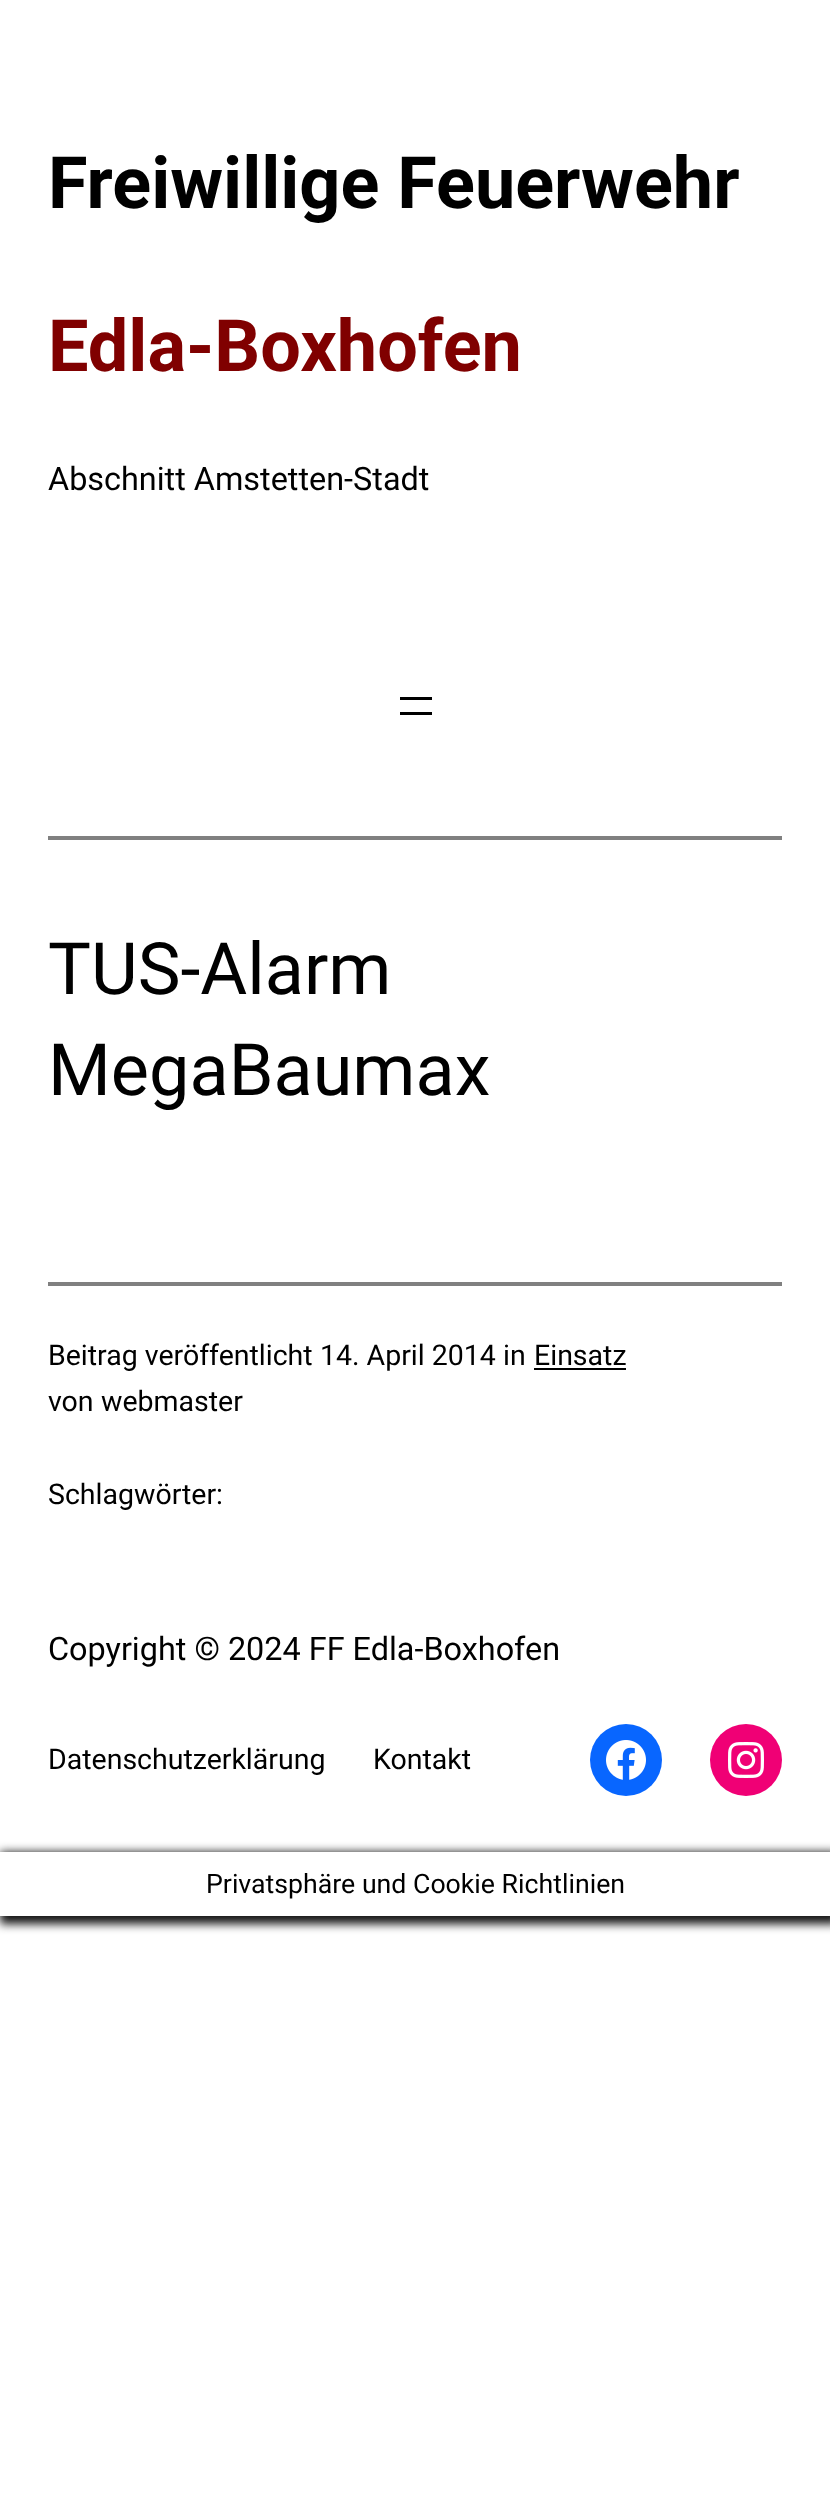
async function draw(canvas) {
	canvas.width = 830;
	canvas.height = 2510;
	const c = canvas.getContext('2d');
	c.miterLimit = 4;
	c.fontKerning = 'normal';
	async function loadImage(src) {
		const img = new Image();
		img.src = src;
		await img.decode();
		return img;
	}

	c.fillStyle = '#fff';
	c.fillRect(0, 0, 830, 2510);
	c.font = 'bold 72px Roboto';
	c.fillStyle = '#000';
	c.fillText('Freiwillige Feuerwehr', 48, 208);
	c.fillStyle = '#800000';
	c.fillText('Edla-Boxhofen', 48, 371);
	c.font = '32.4px Roboto';
	c.fillStyle = '#000';
	c.fillText('Abschnitt Amstetten-Stadt', 48, 490);
	for (const [x, y, w, h, color] of [
		[400, 697, 32, 3, '#000'],
		[400, 712, 32, 3, '#000'],
		[48, 836, 734, 4, '#808080'],
	]) {
		c.fillStyle = color;
		c.fillRect(x, y, w, h);
	}
	c.font = '72px Roboto';
	c.fillStyle = '#000';
	c.fillText('TUS-Alarm', 48, 994);
	c.fillText('MegaBaumax', 48, 1095);
	c.fillStyle = '#808080';
	c.fillRect(48, 1282, 734, 4);
	c.font = '28.5px Roboto';
	c.fillStyle = '#000';
	for (const [text, x, y] of [
		['Beitrag veröffentlicht', 48, 1365],
		['14. April 2014', 320, 1365],
		['in', 503, 1365],
		['Einsatz', 534, 1365],
	]) {
		c.fillText(text, x, y);
	}
	c.fillRect(534, 1368, 92, 2);
	for (const [text, x, y] of [
		['von', 48, 1411],
		['webmaster', 101, 1411],
		['Schlagwörter:', 48, 1504],
	]) {
		c.fillText(text, x, y);
	}
	c.font = '32.4px Roboto';
	c.fillText('Copyright © 2024 FF Edla-Boxhofen', 48, 1660);
	c.font = '28.5px Roboto';
	c.fillText('Datenschutzerklärung', 48, 1769);
	c.fillText('Kontakt', 373, 1769);
	c.fillStyle = '#0866ff';
	c.beginPath();
	c.arc(626, 1760, 36, 0, 2 * Math.PI);
	c.fill();
	c.drawImage(await loadImage('img1.png'), 606, 1740, 40, 40);
	c.fillStyle = '#f00075';
	c.beginPath();
	c.arc(746, 1760, 36, 0, 2 * Math.PI);
	c.fill();
	c.drawImage(await loadImage('img2.png'), 728, 1742, 36, 36);
	c.save();
	c.beginPath();
	c.moveTo(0, 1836);
	c.lineTo(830, 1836);
	c.lineTo(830, 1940);
	c.lineTo(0, 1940);
	c.closePath();
	c.moveTo(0, 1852);
	c.lineTo(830, 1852);
	c.lineTo(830, 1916);
	c.lineTo(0, 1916);
	c.closePath();
	c.clip('evenodd');
	c.fillStyle = '#161616';
	c.filter = 'blur(5px)';
	c.beginPath();
	c.rect(0, 1852, 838, 72);
	c.fill();
	c.filter = 'none';
	c.restore();
	c.font = '26.7px Roboto';
	c.fillStyle = '#000';
	c.fillText('Privatsphäre und Cookie Richtlinien', 206, 1893);
}

draw(document.querySelector('canvas'));
